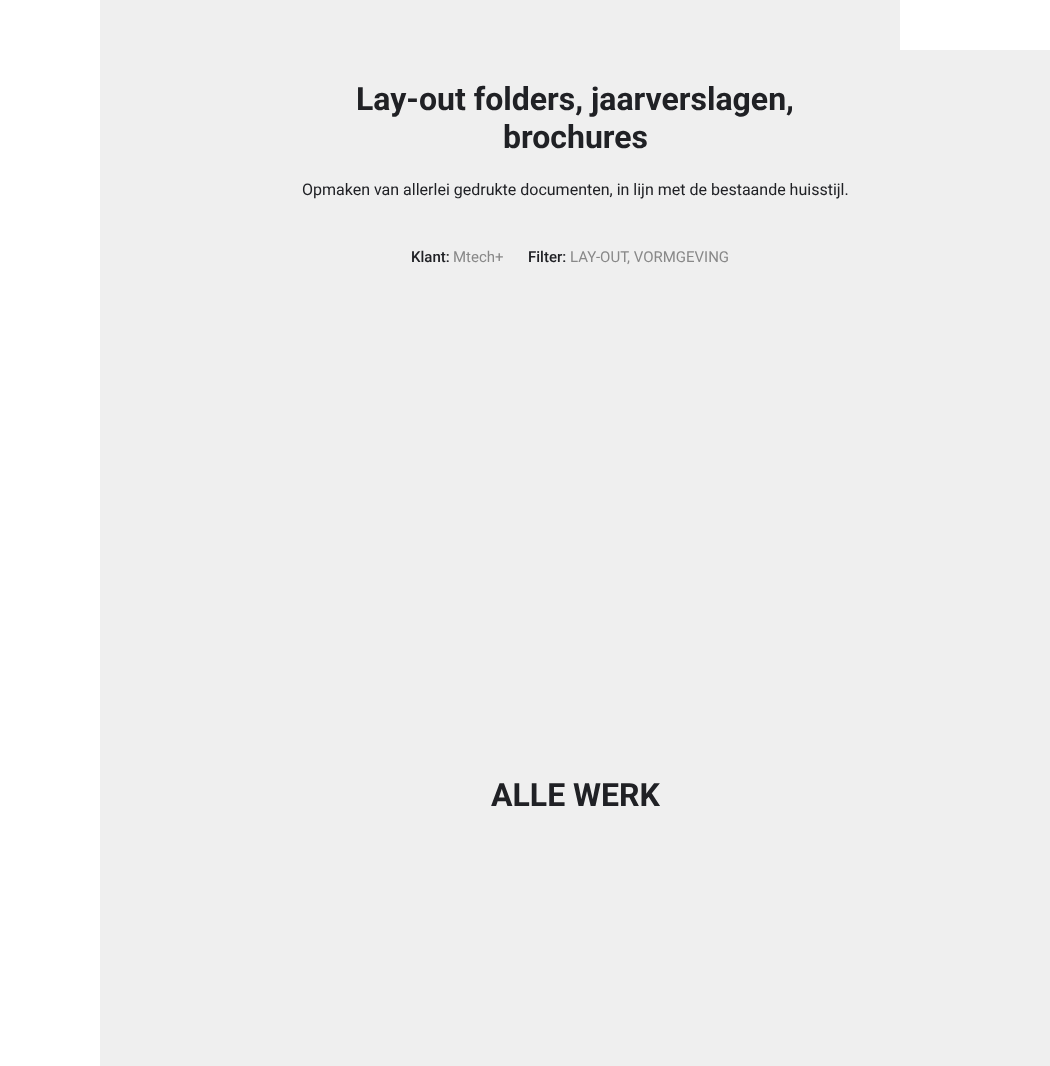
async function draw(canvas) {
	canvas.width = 1050;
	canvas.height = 1066;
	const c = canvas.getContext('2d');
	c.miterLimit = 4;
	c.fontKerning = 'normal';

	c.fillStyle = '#efefef';
	c.fillRect(0, 0, 1050, 1066);
	c.fillStyle = '#fff';
	c.fillRect(0, 0, 100, 1066);
	c.fillRect(900, 0, 150, 50);
	c.font = 'bold 32px Roboto';
	c.fillStyle = '#202125';
	c.fillText('Lay-out folders, jaarverslagen,', 356, 110);
	c.fillText('brochures', 503, 148);
	c.font = '16px Roboto';
	c.fillText('Opmaken van allerlei gedrukte documenten, in lijn met de bestaande huisstijl.', 302, 195);
	c.font = '500 15px Roboto';
	c.fillText('Klant:', 411, 262);
	c.font = '15px Roboto';
	c.fillStyle = '#888';
	c.fillText('Mtech+', 453, 262);
	c.font = '500 15px Roboto';
	c.fillStyle = '#202125';
	c.fillText('Filter:', 528, 262);
	c.font = '15px Roboto';
	c.fillStyle = '#888';
	c.fillText('LAY-OUT', 570, 262);
	c.fillText(', VORMGEVING', 627, 262);
	c.font = 'bold 32px Roboto';
	c.fillStyle = '#202125';
	c.fillText('ALLE WERK', 491, 806);
}

draw(document.querySelector('canvas'));
